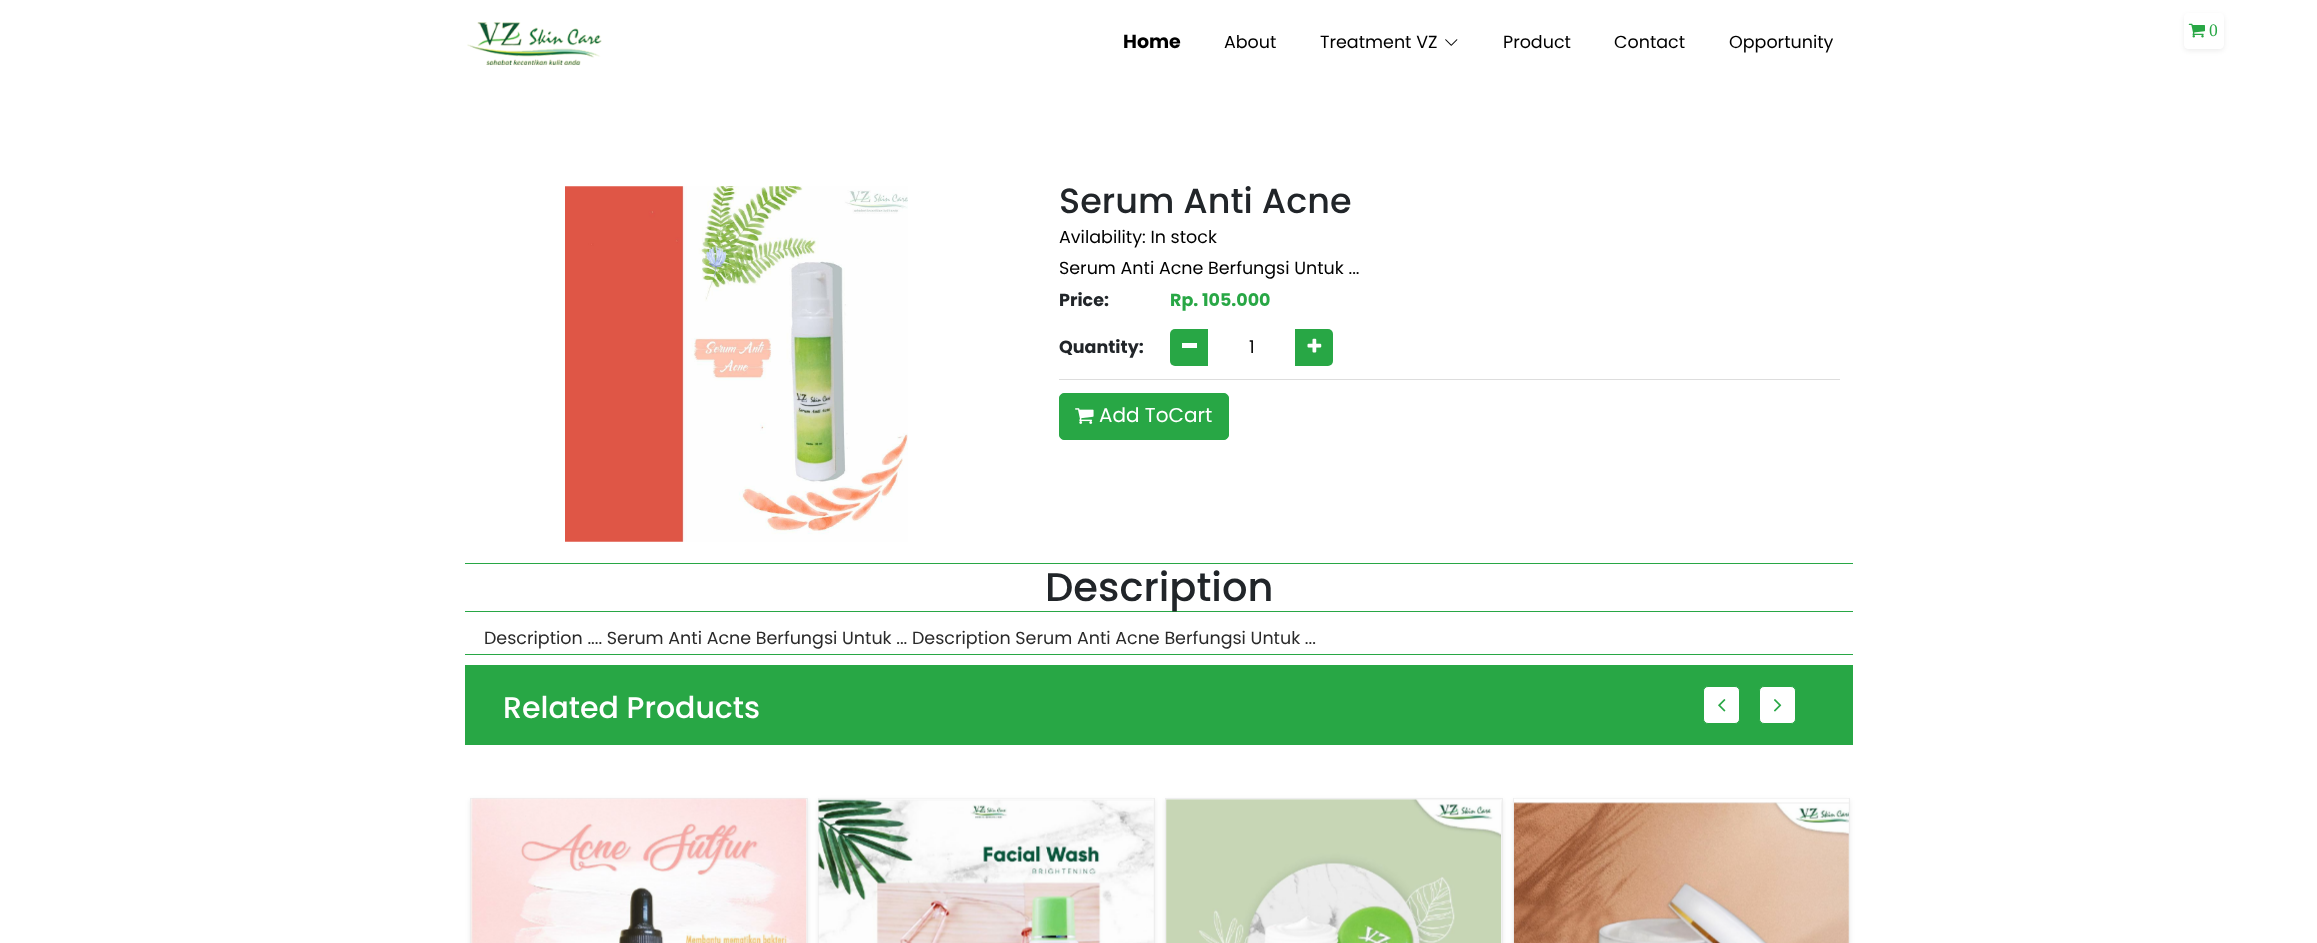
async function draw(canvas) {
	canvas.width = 2317;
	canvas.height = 943;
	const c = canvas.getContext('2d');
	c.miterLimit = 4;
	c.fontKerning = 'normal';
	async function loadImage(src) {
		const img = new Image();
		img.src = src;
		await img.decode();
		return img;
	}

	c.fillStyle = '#fff';
	c.fillRect(0, 0, 2317, 943);
	c.drawImage(await loadImage('img1.png'), 467, 22, 135, 44);
	c.save();
	c.beginPath();
	c.moveTo(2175, 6);
	c.lineTo(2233, 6);
	c.lineTo(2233, 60);
	c.lineTo(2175, 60);
	c.closePath();
	c.moveTo(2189, 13);
	c.lineTo(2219, 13);
	c.bezierCurveTo(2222, 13, 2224, 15, 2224, 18);
	c.lineTo(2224, 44);
	c.bezierCurveTo(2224, 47, 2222, 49, 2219, 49);
	c.lineTo(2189, 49);
	c.bezierCurveTo(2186, 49, 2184, 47, 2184, 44);
	c.lineTo(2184, 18);
	c.bezierCurveTo(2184, 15, 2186, 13, 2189, 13);
	c.closePath();
	c.clip('evenodd');
	c.fillStyle = '#00000012';
	c.filter = 'blur(2.5px)';
	c.beginPath();
	c.roundRect(2184, 15, 40, 36, 5);
	c.fill();
	c.filter = 'none';
	c.restore();
	c.drawImage(await loadImage('img2.png'), 2188, 23, 17, 15);
	c.font = '17.5px Liberation Serif';
	c.fillStyle = '#28a745';
	c.fillText('0', 2209, 36);
	c.font = 'bold 19px Poppins';
	c.fillStyle = '#000';
	c.fillText('Home', 1123, 48);
	c.font = '17.5px Poppins';
	c.fillText('About', 1224, 48);
	c.fillText('Treatment VZ', 1320, 48);
	c.drawImage(await loadImage('img3.png'), 1445, 39, 13, 7);
	for (const [text, x, y] of [
		['Product', 1503, 48],
		['Contact', 1614, 48],
		['Opportunity', 1729, 48],
	]) {
		c.fillText(text, x, y);
	}
	c.drawImage(await loadImage('img4.png'), 565, 186, 343, 356);
	c.font = '500 35px Poppins';
	c.fillStyle = '#212529';
	c.fillText('Serum Anti Acne', 1059, 213);
	c.font = '17.5px Poppins';
	c.fillStyle = '#000';
	c.fillText('Avilability: In stock', 1059, 243);
	c.fillText('Serum Anti Acne Berfungsi Untuk ...', 1059, 274);
	c.font = 'bold 17.5px Poppins';
	c.fillStyle = '#212529';
	c.fillText('Price:', 1059, 306);
	c.fillStyle = '#28a745';
	c.fillText('Rp. 105.000', 1170, 306);
	c.fillStyle = '#212529';
	c.fillText('Quantity:', 1059, 353);
	c.fillStyle = '#28a745';
	c.beginPath();
	c.roundRect(1170, 329, 38, 37, [5, 0, 0, 5]);
	c.fill();
	c.fillStyle = '#fff';
	c.fillRect(1182, 343, 15, 5);
	c.font = '17.5px Poppins';
	c.fillStyle = '#000';
	c.fillText('1', 1249, 353);
	c.fillStyle = '#28a745';
	c.beginPath();
	c.roundRect(1295, 329, 38, 37, [0, 5, 5, 0]);
	c.fill();
	c.drawImage(await loadImage('img5.png'), 1307, 338, 15, 15);
	c.fillStyle = '#ddd';
	c.fillRect(1059, 379, 781, 1);
	c.fillStyle = '#28a745';
	c.beginPath();
	c.roundRect(1059.5, 393.5, 169, 46, 4.5);
	c.fill();
	c.strokeStyle = '#28a745';
	c.stroke();
	c.drawImage(await loadImage('img6.png'), 1075, 408, 19, 16);
	c.font = '20px Poppins';
	c.fillStyle = '#fff';
	c.fillText('Add ToCart', 1099, 422);
	c.fillStyle = '#28a745';
	c.fillRect(465, 563, 1388, 1);
	c.fillRect(465, 611, 1388, 1);
	c.font = '500 40px Poppins';
	c.fillStyle = '#212529';
	c.fillText('Description', 1045, 601);
	c.fillStyle = '#28a745';
	c.fillRect(465, 654, 1388, 1);
	c.font = '17.5px Poppins';
	c.fillStyle = '#2a2a2a';
	c.fillText('Description .... Serum Anti Acne Berfungsi Untuk ... Description Serum Anti Acne Berfungsi Untuk ...', 484, 644);
	c.fillStyle = '#28a745';
	c.fillRect(465, 665, 1388, 80);
	c.fillStyle = '#fff';
	c.beginPath();
	c.roundRect(1703.5, 686.5, 36, 37, 4.5);
	c.fill();
	c.stroke();
	c.drawImage(await loadImage('img7.png'), 1718, 699, 8, 13);
	c.beginPath();
	c.roundRect(1759.5, 686.5, 36, 37, 4.5);
	c.fill();
	c.stroke();
	c.drawImage(await loadImage('img8.png'), 1774, 699, 8, 13);
	c.fillStyle = '#00000012';
	c.filter = 'blur(2.5px)';
	c.beginPath();
	c.rect(470, 800, 338, 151);
	c.fill();
	c.filter = 'none';
	c.strokeStyle = '#eee';
	c.strokeRect(470.5, 798.5, 337, 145);
	c.drawImage(await loadImage('img9.png'), 471, 798, 336, 145);
	c.filter = 'blur(2.5px)';
	c.beginPath();
	c.rect(818, 800, 337, 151);
	c.fill();
	c.filter = 'none';
	c.strokeRect(818.5, 798.5, 336, 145);
	c.drawImage(await loadImage('img10.png'), 818, 798, 336, 145);
	c.filter = 'blur(2.5px)';
	c.beginPath();
	c.rect(1165, 800, 338, 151);
	c.fill();
	c.filter = 'none';
	c.strokeRect(1165.5, 798.5, 337, 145);
	c.drawImage(await loadImage('img11.png'), 1166, 799, 335, 144);
	c.filter = 'blur(2.5px)';
	c.beginPath();
	c.rect(1513, 800, 337, 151);
	c.fill();
	c.filter = 'none';
	c.strokeRect(1513.5, 798.5, 336, 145);
	c.drawImage(await loadImage('img12.png'), 1514, 798, 335, 145);
	c.font = '500 30px Poppins';
	c.fillStyle = '#fff';
	c.fillText('Related Products', 503, 718);
}

draw(document.querySelector('canvas'));
